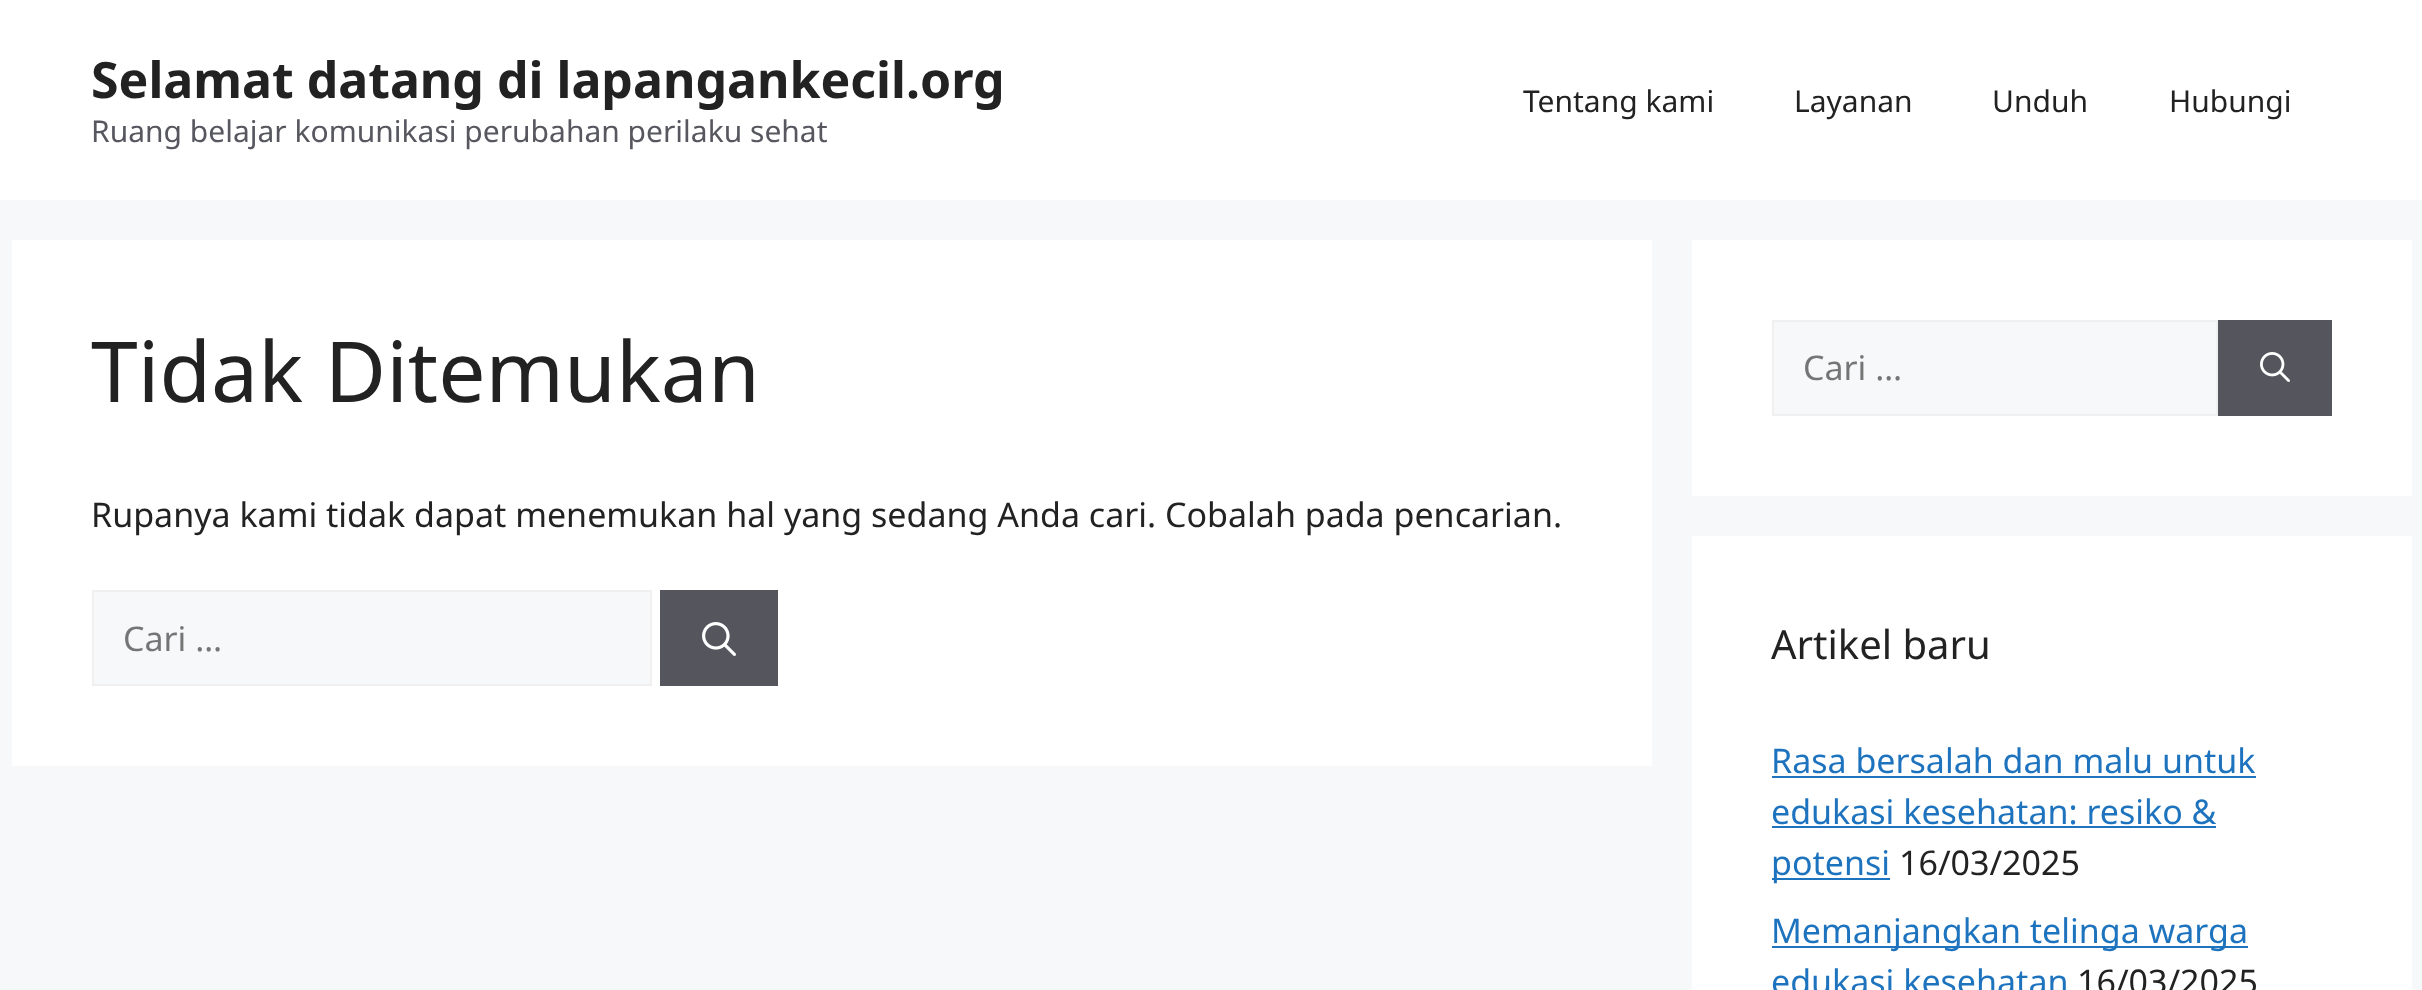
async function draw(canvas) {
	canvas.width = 2422;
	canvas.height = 990;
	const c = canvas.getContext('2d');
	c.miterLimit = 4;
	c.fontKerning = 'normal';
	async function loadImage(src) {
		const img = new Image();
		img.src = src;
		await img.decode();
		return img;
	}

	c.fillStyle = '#f7f8f9';
	c.fillRect(0, 0, 2422, 990);
	c.fillStyle = '#fff';
	c.fillRect(0, 0, 2422, 200);
	c.font = 'bold 50px Noto Sans';
	c.fillStyle = '#222';
	c.fillText('Selamat datang di lapangankecil.org', 91, 98);
	c.font = '30px Noto Sans';
	c.fillStyle = '#575760';
	c.fillText('Ruang belajar komunikasi perubahan perilaku sehat', 91, 142);
	c.fillStyle = '#222';
	for (const [text, x, y] of [
		['Tentang kami', 1523, 112],
		['Layanan', 1794, 112],
		['Unduh', 1992, 112],
		['Hubungi', 2169, 112],
	]) {
		c.fillText(text, x, y);
	}
	c.fillStyle = '#fff';
	c.fillRect(12, 240, 1640, 526);
	c.font = '84px Noto Sans';
	c.fillStyle = '#222';
	c.fillText('Tidak Ditemukan', 91, 402);
	c.font = '34px Noto Sans';
	c.fillText('Rupanya kami tidak dapat menemukan hal yang sedang Anda cari. Cobalah pada pencarian.', 91, 527);
	c.fillStyle = '#f7f8f9';
	c.beginPath();
	c.rect(93, 591, 558, 94);
	c.fill();
	c.strokeStyle = '#f0f0f0';
	c.lineWidth = 2;
	c.stroke();
	c.fillStyle = '#757575';
	c.fillText('Cari …', 123, 651);
	c.fillStyle = '#55555e';
	c.fillRect(660, 590, 118, 96);
	c.drawImage(await loadImage('img1.png'), 702, 622, 34, 34);
	c.fillStyle = '#fff';
	c.fillRect(1692, 240, 720, 256);
	c.fillStyle = '#f7f8f9';
	c.beginPath();
	c.rect(1773, 321, 444, 94);
	c.fill();
	c.stroke();
	c.fillStyle = '#757575';
	c.fillText('Cari …', 1803, 380);
	c.fillStyle = '#55555e';
	c.fillRect(2218, 320, 114, 96);
	c.drawImage(await loadImage('img2.png'), 2260, 352, 30, 30);
	c.fillStyle = '#fff';
	c.fillRect(1692, 536, 720, 454);
	c.font = '40px Noto Sans';
	c.fillStyle = '#222';
	c.fillText('Artikel baru', 1771, 659);
	c.font = '34px Noto Sans';
	c.fillStyle = '#1e73be';
	c.fillText('Rasa bersalah dan malu untuk', 1771, 773);
	c.fillRect(1772, 776, 484, 2);
	c.fillText('edukasi kesehatan: resiko &', 1771, 824);
	c.fillRect(1772, 826, 444, 2);
	c.fillRect(1772, 878, 118, 2);
	c.fillText('potensi', 1771, 875);
	c.fillStyle = '#222';
	c.fillText('16/03/2025', 1899, 875);
	c.fillStyle = '#1e73be';
	c.fillRect(1772, 946, 476, 2);
	c.fillText('Memanjangkan telinga warga', 1771, 943);
	c.fillText('edukasi kesehatan', 1771, 994);
	c.fillStyle = '#222';
	c.fillText('16/03/2025', 2077, 994);
}

draw(document.querySelector('canvas'));
